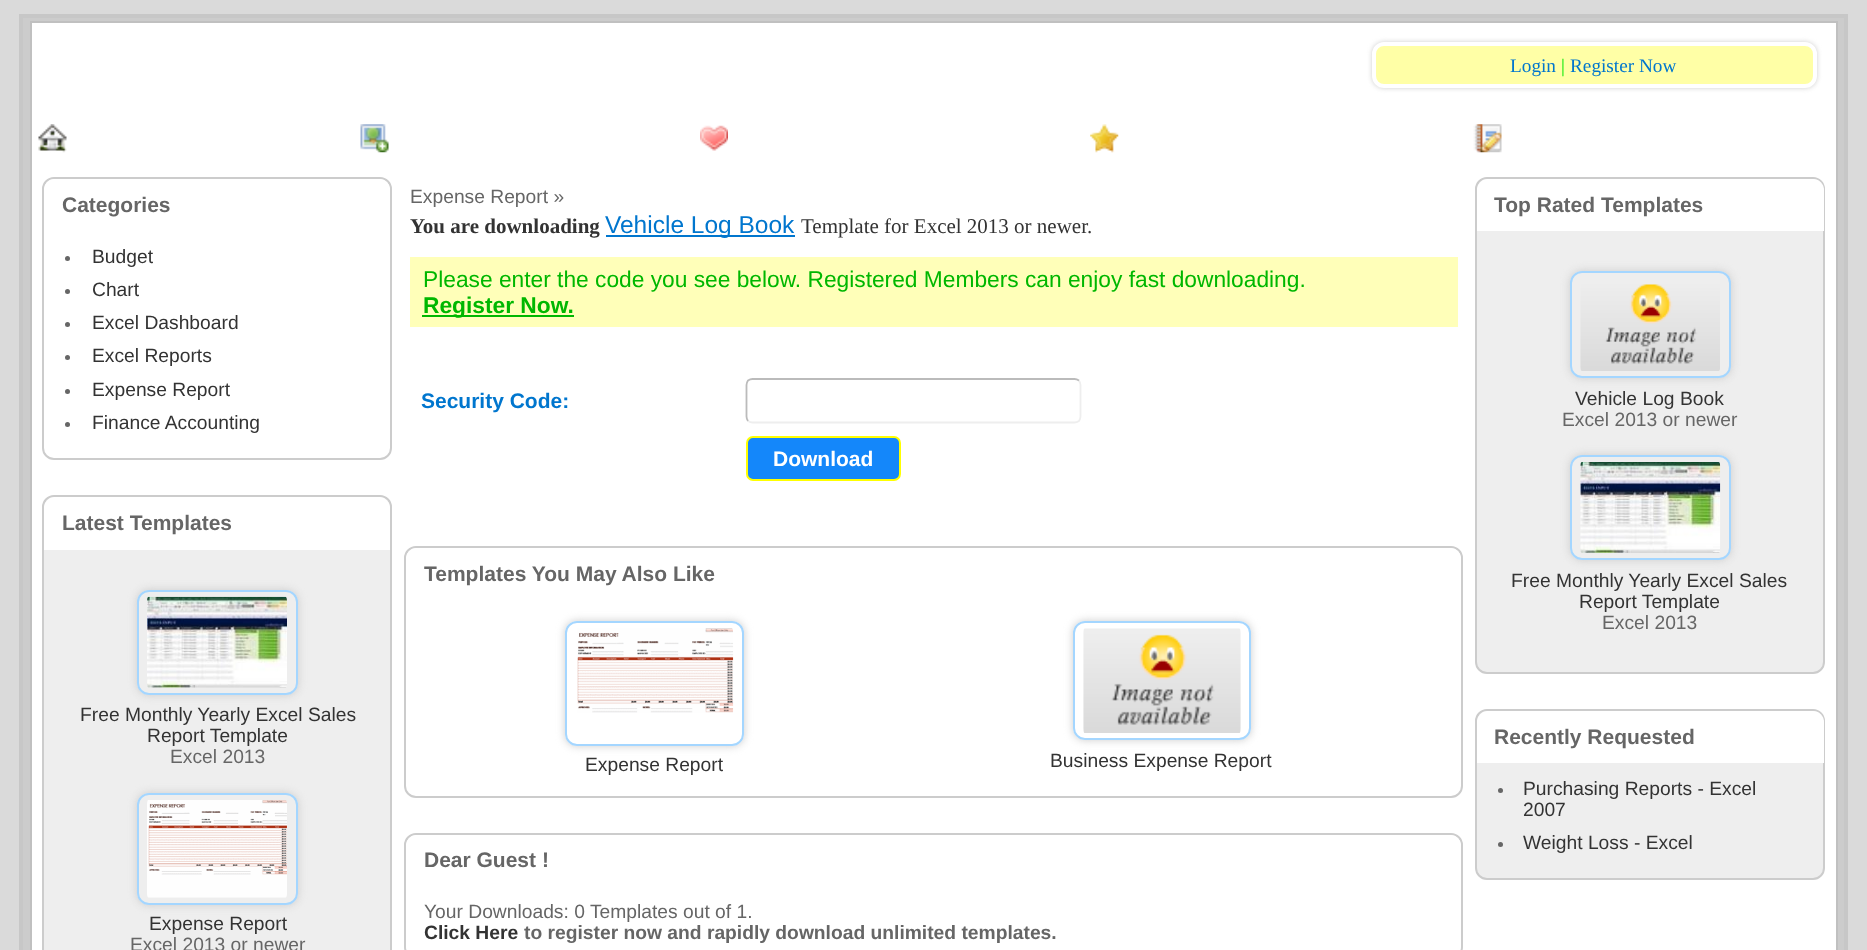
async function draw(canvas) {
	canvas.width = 1867;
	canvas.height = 950;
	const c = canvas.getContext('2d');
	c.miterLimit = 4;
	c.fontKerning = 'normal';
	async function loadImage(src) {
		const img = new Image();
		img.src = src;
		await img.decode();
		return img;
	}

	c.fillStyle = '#dadada';
	c.fillRect(0, 0, 1867, 950);
	c.fillStyle = '#ccc';
	c.beginPath();
	c.rect(21, 16, 1825, 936);
	c.fill();
	c.strokeStyle = '#c7c7c7';
	c.lineWidth = 4;
	c.stroke();
	c.fillStyle = '#fff';
	c.beginPath();
	c.rect(31, 22, 1806, 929);
	c.fill();
	c.strokeStyle = '#c0c0c0';
	c.lineWidth = 2;
	c.stroke();
	c.fillStyle = '#cecece';
	c.filter = 'blur(2.5px)';
	c.beginPath();
	c.roundRect(1372, 42, 445, 46, 12);
	c.fill();
	c.filter = 'none';
	c.fillStyle = '#ffffa6';
	c.beginPath();
	c.roundRect(1374, 44, 441, 42, 10);
	c.fill();
	c.strokeStyle = '#fff';
	c.lineWidth = 4;
	c.stroke();
	c.font = '19.25px Liberation Serif';
	c.fillStyle = '#0076ce';
	c.fillText('Login', 1510, 72);
	c.fillStyle = '#00e800';
	c.fillText('|', 1561, 72);
	c.fillStyle = '#0076ce';
	c.fillText('Register Now', 1570, 72);
	c.drawImage(await loadImage('img1.png'), 38, 124, 29, 29);
	c.drawImage(await loadImage('img2.png'), 360, 124, 29, 29);
	c.drawImage(await loadImage('img3.png'), 700, 125, 28, 26);
	c.drawImage(await loadImage('img4.png'), 1090, 124, 29, 29);
	c.drawImage(await loadImage('img5.png'), 1473, 124, 29, 29);
	c.beginPath();
	c.roundRect(43, 178, 348, 281, 11);
	c.strokeStyle = '#ccc';
	c.lineWidth = 2;
	c.stroke();
	c.fillStyle = '#fff';
	c.beginPath();
	c.roundRect(44, 179, 346, 52, [11, 11, 0, 0]);
	c.fill();
	c.font = 'bold 21px Liberation Sans';
	c.fillStyle = '#666';
	c.fillText('Categories', 62, 212);
	c.beginPath();
	c.arc(67.5, 258.5, 2.5, 0, 2 * Math.PI);
	c.fill();
	c.font = '19.25px Liberation Sans';
	c.fillStyle = '#333';
	c.fillText('Budget', 92, 263);
	c.fillStyle = '#666';
	c.beginPath();
	c.arc(67.5, 291.5, 2.5, 0, 2 * Math.PI);
	c.fill();
	c.fillStyle = '#333';
	c.fillText('Chart', 92, 296);
	c.fillStyle = '#666';
	c.beginPath();
	c.arc(67.5, 324.5, 2.5, 0, 2 * Math.PI);
	c.fill();
	c.fillStyle = '#333';
	c.fillText('Excel Dashboard', 92, 329);
	c.fillStyle = '#666';
	c.beginPath();
	c.arc(67.5, 357.5, 2.5, 0, 2 * Math.PI);
	c.fill();
	c.fillStyle = '#333';
	c.fillText('Excel Reports', 92, 362);
	c.fillStyle = '#666';
	c.beginPath();
	c.arc(67.5, 391.5, 2.5, 0, 2 * Math.PI);
	c.fill();
	c.fillStyle = '#333';
	c.fillText('Expense Report', 92, 396);
	c.fillStyle = '#666';
	c.beginPath();
	c.arc(67.5, 424.5, 2.5, 0, 2 * Math.PI);
	c.fill();
	c.fillStyle = '#333';
	c.fillText('Finance Accounting', 92, 429);
	c.fillStyle = '#eee';
	c.beginPath();
	c.roundRect(43, 496, 348, 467, 11);
	c.fill();
	c.stroke();
	c.fillStyle = '#fff';
	c.beginPath();
	c.roundRect(44, 497, 346, 53, [11, 11, 0, 0]);
	c.fill();
	c.font = 'bold 21px Liberation Sans';
	c.fillStyle = '#666';
	c.fillText('Latest Templates', 62, 530);
	c.save();
	c.beginPath();
	c.moveTo(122, 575);
	c.lineTo(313, 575);
	c.lineTo(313, 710);
	c.lineTo(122, 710);
	c.closePath();
	c.moveTo(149, 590);
	c.lineTo(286, 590);
	c.bezierCurveTo(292.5, 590, 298, 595.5, 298, 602);
	c.lineTo(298, 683);
	c.bezierCurveTo(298, 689.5, 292.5, 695, 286, 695);
	c.lineTo(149, 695);
	c.bezierCurveTo(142.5, 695, 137, 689.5, 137, 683);
	c.lineTo(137, 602);
	c.bezierCurveTo(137, 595.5, 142.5, 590, 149, 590);
	c.closePath();
	c.clip('evenodd');
	c.fillStyle = '#ccc';
	c.filter = 'blur(4.5px)';
	c.beginPath();
	c.roundRect(137, 590, 161, 105, 12);
	c.fill();
	c.filter = 'none';
	c.restore();
	c.beginPath();
	c.roundRect(138, 591, 159, 103, 11);
	c.strokeStyle = '#a4d6ff';
	c.stroke();
	c.drawImage(await loadImage('img6.png'), 147, 596, 140, 92);
	c.font = '19.25px Liberation Sans';
	c.fillStyle = '#333';
	c.fillText('Free Monthly Yearly Excel Sales', 80, 721);
	c.fillText('Report Template', 147, 742);
	c.fillStyle = '#666';
	c.fillText('Excel 2013', 170, 763);
	c.save();
	c.beginPath();
	c.moveTo(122, 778);
	c.lineTo(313, 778);
	c.lineTo(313, 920);
	c.lineTo(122, 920);
	c.closePath();
	c.moveTo(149, 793);
	c.lineTo(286, 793);
	c.bezierCurveTo(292.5, 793, 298, 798.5, 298, 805);
	c.lineTo(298, 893);
	c.bezierCurveTo(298, 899.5, 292.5, 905, 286, 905);
	c.lineTo(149, 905);
	c.bezierCurveTo(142.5, 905, 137, 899.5, 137, 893);
	c.lineTo(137, 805);
	c.bezierCurveTo(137, 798.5, 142.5, 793, 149, 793);
	c.closePath();
	c.clip('evenodd');
	c.fillStyle = '#ccc';
	c.filter = 'blur(4.5px)';
	c.beginPath();
	c.roundRect(137, 793, 161, 112, 12);
	c.fill();
	c.filter = 'none';
	c.restore();
	c.beginPath();
	c.roundRect(138, 794, 159, 110, 11);
	c.stroke();
	c.drawImage(await loadImage('img7.png'), 147, 800, 140, 98);
	c.fillStyle = '#333';
	c.fillText('Expense Report', 149, 930);
	c.fillStyle = '#666';
	c.fillText('Excel 2013 or newer', 130, 951);
	c.fillText('Expense Report »', 410, 203);
	c.font = 'bold 21px Liberation Serif';
	c.fillStyle = '#333';
	c.fillText('You are downloading', 410, 233);
	c.fillStyle = '#0076ce';
	c.fillRect(606, 235, 189, 2);
	c.font = '24.5px Liberation Sans';
	c.fillText('Vehicle Log Book', 605, 233);
	c.font = '21px Liberation Serif';
	c.fillStyle = '#333';
	c.fillText('Template for Excel 2013 or newer.', 801, 233);
	c.fillStyle = '#ffffb9';
	c.fillRect(410, 257, 1048, 70);
	c.font = '22.75px Liberation Sans';
	c.fillStyle = '#00b700';
	c.fillText('Please enter the code you see below. Registered Members can enjoy fast downloading.', 423, 287);
	c.fillRect(422, 315, 152, 2);
	c.font = 'bold 22.75px Liberation Sans';
	c.fillText('Register Now.', 423, 313);
	c.font = 'bold 21px Liberation Sans';
	c.fillStyle = '#0076ce';
	c.fillText('Security Code:', 421, 408);
	c.beginPath();
	c.moveTo(1079, 380.5);
	c.bezierCurveTo(1080, 382, 1080.5, 383.5, 1080.5, 385);
	c.lineTo(1080.5, 416.5);
	c.bezierCurveTo(1080.5, 418, 1080, 419.5, 1079, 421);
	c.bezierCurveTo(1077.5, 422, 1076, 422.5, 1074.5, 422.5);
	c.lineTo(752.5, 422.5);
	c.bezierCurveTo(751, 422.5, 749.5, 422, 748, 421);
	c.strokeStyle = '#eee';
	c.lineWidth = 1.8;
	c.stroke();
	c.beginPath();
	c.moveTo(748, 421);
	c.bezierCurveTo(747, 419.5, 746.5, 418, 746.5, 416.5);
	c.lineTo(746.5, 385);
	c.bezierCurveTo(746.5, 383.5, 747, 382, 748, 380.5);
	c.bezierCurveTo(749.5, 379.5, 751, 379, 752.5, 379);
	c.lineTo(1074.5, 379);
	c.bezierCurveTo(1076, 379, 1077.5, 379.5, 1079, 380.5);
	c.strokeStyle = '#bbb';
	c.stroke();
	c.fillStyle = '#1487fa';
	c.beginPath();
	c.roundRect(747, 437, 153, 43, 6);
	c.fill();
	c.strokeStyle = '#ff0';
	c.lineWidth = 2;
	c.stroke();
	c.fillStyle = '#fff';
	c.fillText('Download', 773, 466);
	c.beginPath();
	c.roundRect(405, 547, 1057, 250, 11);
	c.strokeStyle = '#ccc';
	c.stroke();
	c.beginPath();
	c.roundRect(406, 548, 1055, 52, [11, 11, 0, 0]);
	c.fill();
	c.fillStyle = '#666';
	c.fillText('Templates You May Also Like', 424, 581);
	c.save();
	c.beginPath();
	c.moveTo(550, 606);
	c.lineTo(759, 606);
	c.lineTo(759, 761);
	c.lineTo(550, 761);
	c.closePath();
	c.moveTo(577, 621);
	c.lineTo(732, 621);
	c.bezierCurveTo(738.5, 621, 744, 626.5, 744, 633);
	c.lineTo(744, 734);
	c.bezierCurveTo(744, 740.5, 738.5, 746, 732, 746);
	c.lineTo(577, 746);
	c.bezierCurveTo(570.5, 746, 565, 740.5, 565, 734);
	c.lineTo(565, 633);
	c.bezierCurveTo(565, 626.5, 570.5, 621, 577, 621);
	c.closePath();
	c.clip('evenodd');
	c.fillStyle = '#ccc';
	c.filter = 'blur(4.5px)';
	c.beginPath();
	c.roundRect(565, 621, 179, 125, 12);
	c.fill();
	c.filter = 'none';
	c.restore();
	c.beginPath();
	c.roundRect(566, 622, 177, 123, 11);
	c.strokeStyle = '#a4d6ff';
	c.stroke();
	c.drawImage(await loadImage('img8.png'), 577, 628, 157, 85);
	c.font = '19.25px Liberation Sans';
	c.fillStyle = '#333';
	c.fillText('Expense Report', 585, 771);
	c.save();
	c.beginPath();
	c.moveTo(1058, 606);
	c.lineTo(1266, 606);
	c.lineTo(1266, 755);
	c.lineTo(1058, 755);
	c.closePath();
	c.moveTo(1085, 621);
	c.lineTo(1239, 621);
	c.bezierCurveTo(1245.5, 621, 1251, 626.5, 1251, 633);
	c.lineTo(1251, 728);
	c.bezierCurveTo(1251, 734.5, 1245.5, 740, 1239, 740);
	c.lineTo(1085, 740);
	c.bezierCurveTo(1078.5, 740, 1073, 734.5, 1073, 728);
	c.lineTo(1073, 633);
	c.bezierCurveTo(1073, 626.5, 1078.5, 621, 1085, 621);
	c.closePath();
	c.clip('evenodd');
	c.fillStyle = '#ccc';
	c.filter = 'blur(4.5px)';
	c.beginPath();
	c.roundRect(1073, 621, 178, 119, 12);
	c.fill();
	c.filter = 'none';
	c.restore();
	c.beginPath();
	c.roundRect(1074, 622, 176, 117, 11);
	c.stroke();
	c.drawImage(await loadImage('img9.png'), 1083, 628, 158, 105);
	c.fillText('Business Expense Report', 1050, 767);
	c.beginPath();
	c.roundRect(405, 834, 1057, 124, 11);
	c.strokeStyle = '#ccc';
	c.stroke();
	c.fillStyle = '#fff';
	c.beginPath();
	c.roundRect(406, 835, 1055, 52, [11, 11, 0, 0]);
	c.fill();
	c.font = 'bold 21px Liberation Sans';
	c.fillStyle = '#666';
	c.fillText('Dear Guest !', 424, 867);
	c.font = '19.25px Liberation Sans';
	c.fillText('Your Downloads: 0 Templates out of 1.', 424, 918);
	c.font = 'bold 19.25px Liberation Sans';
	c.fillStyle = '#333';
	c.fillText('Click Here', 424, 939);
	c.fillStyle = '#666';
	c.fillText('to register now and rapidly download unlimited templates.', 524, 939);
	c.fillStyle = '#eee';
	c.beginPath();
	c.roundRect(1476, 178, 348, 495, 11);
	c.fill();
	c.stroke();
	c.fillStyle = '#fff';
	c.beginPath();
	c.roundRect(1477, 179, 347, 52, [11, 11, 0, 0]);
	c.fill();
	c.font = 'bold 21px Liberation Sans';
	c.fillStyle = '#666';
	c.fillText('Top Rated Templates', 1494, 212);
	c.save();
	c.beginPath();
	c.moveTo(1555, 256);
	c.lineTo(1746, 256);
	c.lineTo(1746, 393);
	c.lineTo(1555, 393);
	c.closePath();
	c.moveTo(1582, 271);
	c.lineTo(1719, 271);
	c.bezierCurveTo(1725.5, 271, 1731, 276.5, 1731, 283);
	c.lineTo(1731, 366);
	c.bezierCurveTo(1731, 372.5, 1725.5, 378, 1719, 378);
	c.lineTo(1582, 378);
	c.bezierCurveTo(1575.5, 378, 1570, 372.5, 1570, 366);
	c.lineTo(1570, 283);
	c.bezierCurveTo(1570, 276.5, 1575.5, 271, 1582, 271);
	c.closePath();
	c.clip('evenodd');
	c.fillStyle = '#ccc';
	c.filter = 'blur(4.5px)';
	c.beginPath();
	c.roundRect(1570, 271, 161, 107, 12);
	c.fill();
	c.filter = 'none';
	c.restore();
	c.beginPath();
	c.roundRect(1571, 272, 159, 105, 11);
	c.strokeStyle = '#a4d6ff';
	c.stroke();
	c.drawImage(await loadImage('img10.png'), 1580, 284, 140, 87);
	c.font = '19.25px Liberation Sans';
	c.fillStyle = '#333';
	c.fillText('Vehicle Log Book', 1575, 405);
	c.fillStyle = '#666';
	c.fillText('Excel 2013 or newer', 1562, 426);
	c.save();
	c.beginPath();
	c.moveTo(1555, 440);
	c.lineTo(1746, 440);
	c.lineTo(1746, 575);
	c.lineTo(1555, 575);
	c.closePath();
	c.moveTo(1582, 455);
	c.lineTo(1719, 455);
	c.bezierCurveTo(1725.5, 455, 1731, 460.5, 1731, 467);
	c.lineTo(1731, 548);
	c.bezierCurveTo(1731, 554.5, 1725.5, 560, 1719, 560);
	c.lineTo(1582, 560);
	c.bezierCurveTo(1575.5, 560, 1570, 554.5, 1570, 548);
	c.lineTo(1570, 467);
	c.bezierCurveTo(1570, 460.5, 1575.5, 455, 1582, 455);
	c.closePath();
	c.clip('evenodd');
	c.fillStyle = '#ccc';
	c.filter = 'blur(4.5px)';
	c.beginPath();
	c.roundRect(1570, 455, 161, 105, 12);
	c.fill();
	c.filter = 'none';
	c.restore();
	c.beginPath();
	c.roundRect(1571, 456, 159, 103, 11);
	c.stroke();
	c.drawImage(await loadImage('img11.png'), 1580, 462, 141, 91);
	c.fillStyle = '#333';
	c.fillText('Free Monthly Yearly Excel Sales', 1511, 587);
	c.fillText('Report Template', 1579, 608);
	c.fillStyle = '#666';
	c.fillText('Excel 2013', 1602, 629);
	c.fillStyle = '#eee';
	c.beginPath();
	c.roundRect(1476, 710, 348, 169, 11);
	c.fill();
	c.strokeStyle = '#ccc';
	c.stroke();
	c.fillStyle = '#fff';
	c.beginPath();
	c.roundRect(1477, 711, 347, 52, [11, 11, 0, 0]);
	c.fill();
	c.font = 'bold 21px Liberation Sans';
	c.fillStyle = '#666';
	c.fillText('Recently Requested', 1494, 744);
	c.beginPath();
	c.arc(1500.5, 790.5, 2.5, 0, 2 * Math.PI);
	c.fill();
	c.font = '19.25px Liberation Sans';
	c.fillStyle = '#333';
	c.fillText('Purchasing Reports - Excel', 1523, 795);
	c.fillText('2007', 1523, 816);
	c.fillStyle = '#666';
	c.beginPath();
	c.arc(1500.5, 844.5, 2.5, 0, 2 * Math.PI);
	c.fill();
	c.fillStyle = '#333';
	c.fillText('Weight Loss - Excel', 1523, 849);
}

draw(document.querySelector('canvas'));
